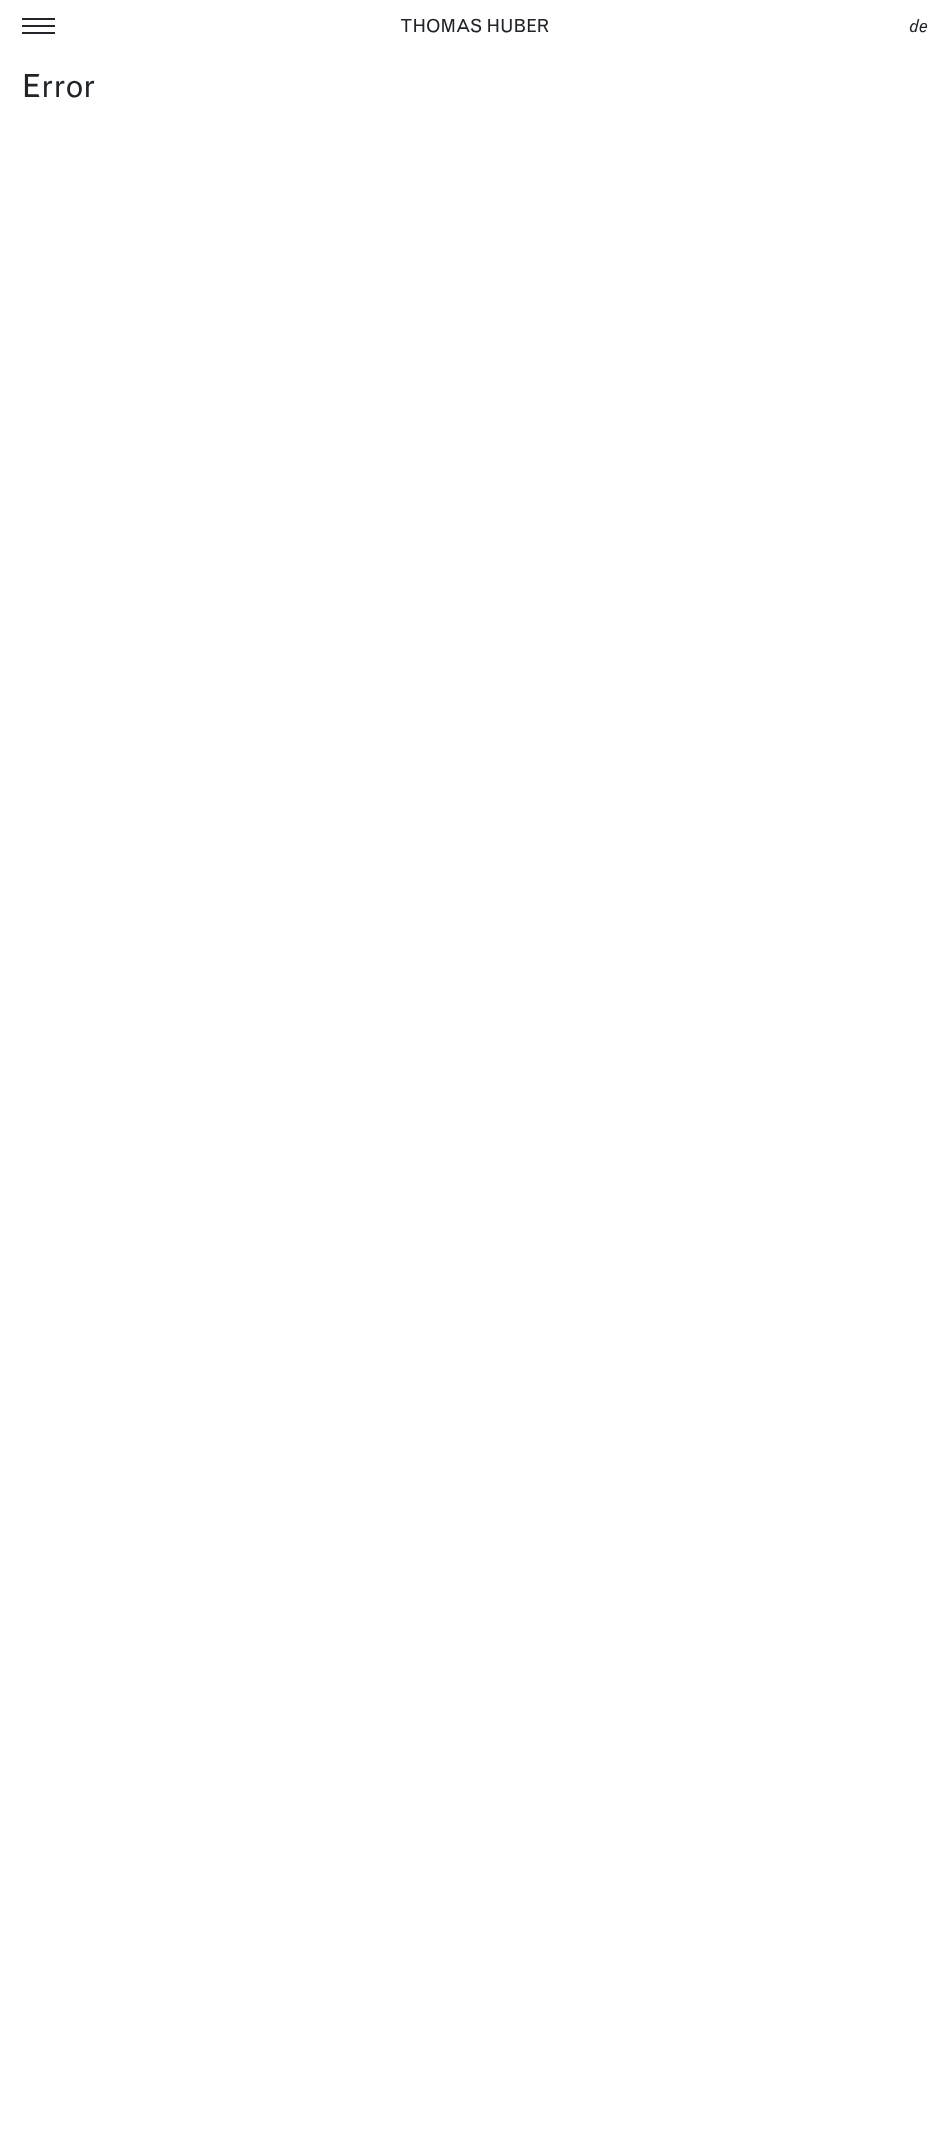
async function draw(canvas) {
	canvas.width = 950;
	canvas.height = 2136;
	const c = canvas.getContext('2d');
	c.miterLimit = 4;
	c.fontKerning = 'normal';

	c.fillStyle = '#fff';
	c.fillRect(0, 0, 950, 2136);
	c.fillStyle = '#212529';
	c.beginPath();
	c.moveTo(55, 20);
	c.lineTo(22, 20);
	c.lineTo(22, 18);
	c.lineTo(55, 18);
	c.closePath();
	c.moveTo(55, 27);
	c.lineTo(22, 27);
	c.lineTo(22, 25);
	c.lineTo(55, 25);
	c.closePath();
	c.moveTo(55, 34);
	c.lineTo(22, 34);
	c.lineTo(22, 32);
	c.lineTo(55, 32);
	c.closePath();
	c.fill('evenodd');
	c.font = '18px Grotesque';
	c.fillText('THOMAS HUBER', 400, 32);
	c.font = 'italic 18px Grotesque';
	c.fillText('de', 909, 32);
	c.font = '32px Grotesque';
	c.fillText('Error', 22, 97);
}

draw(document.querySelector('canvas'));
